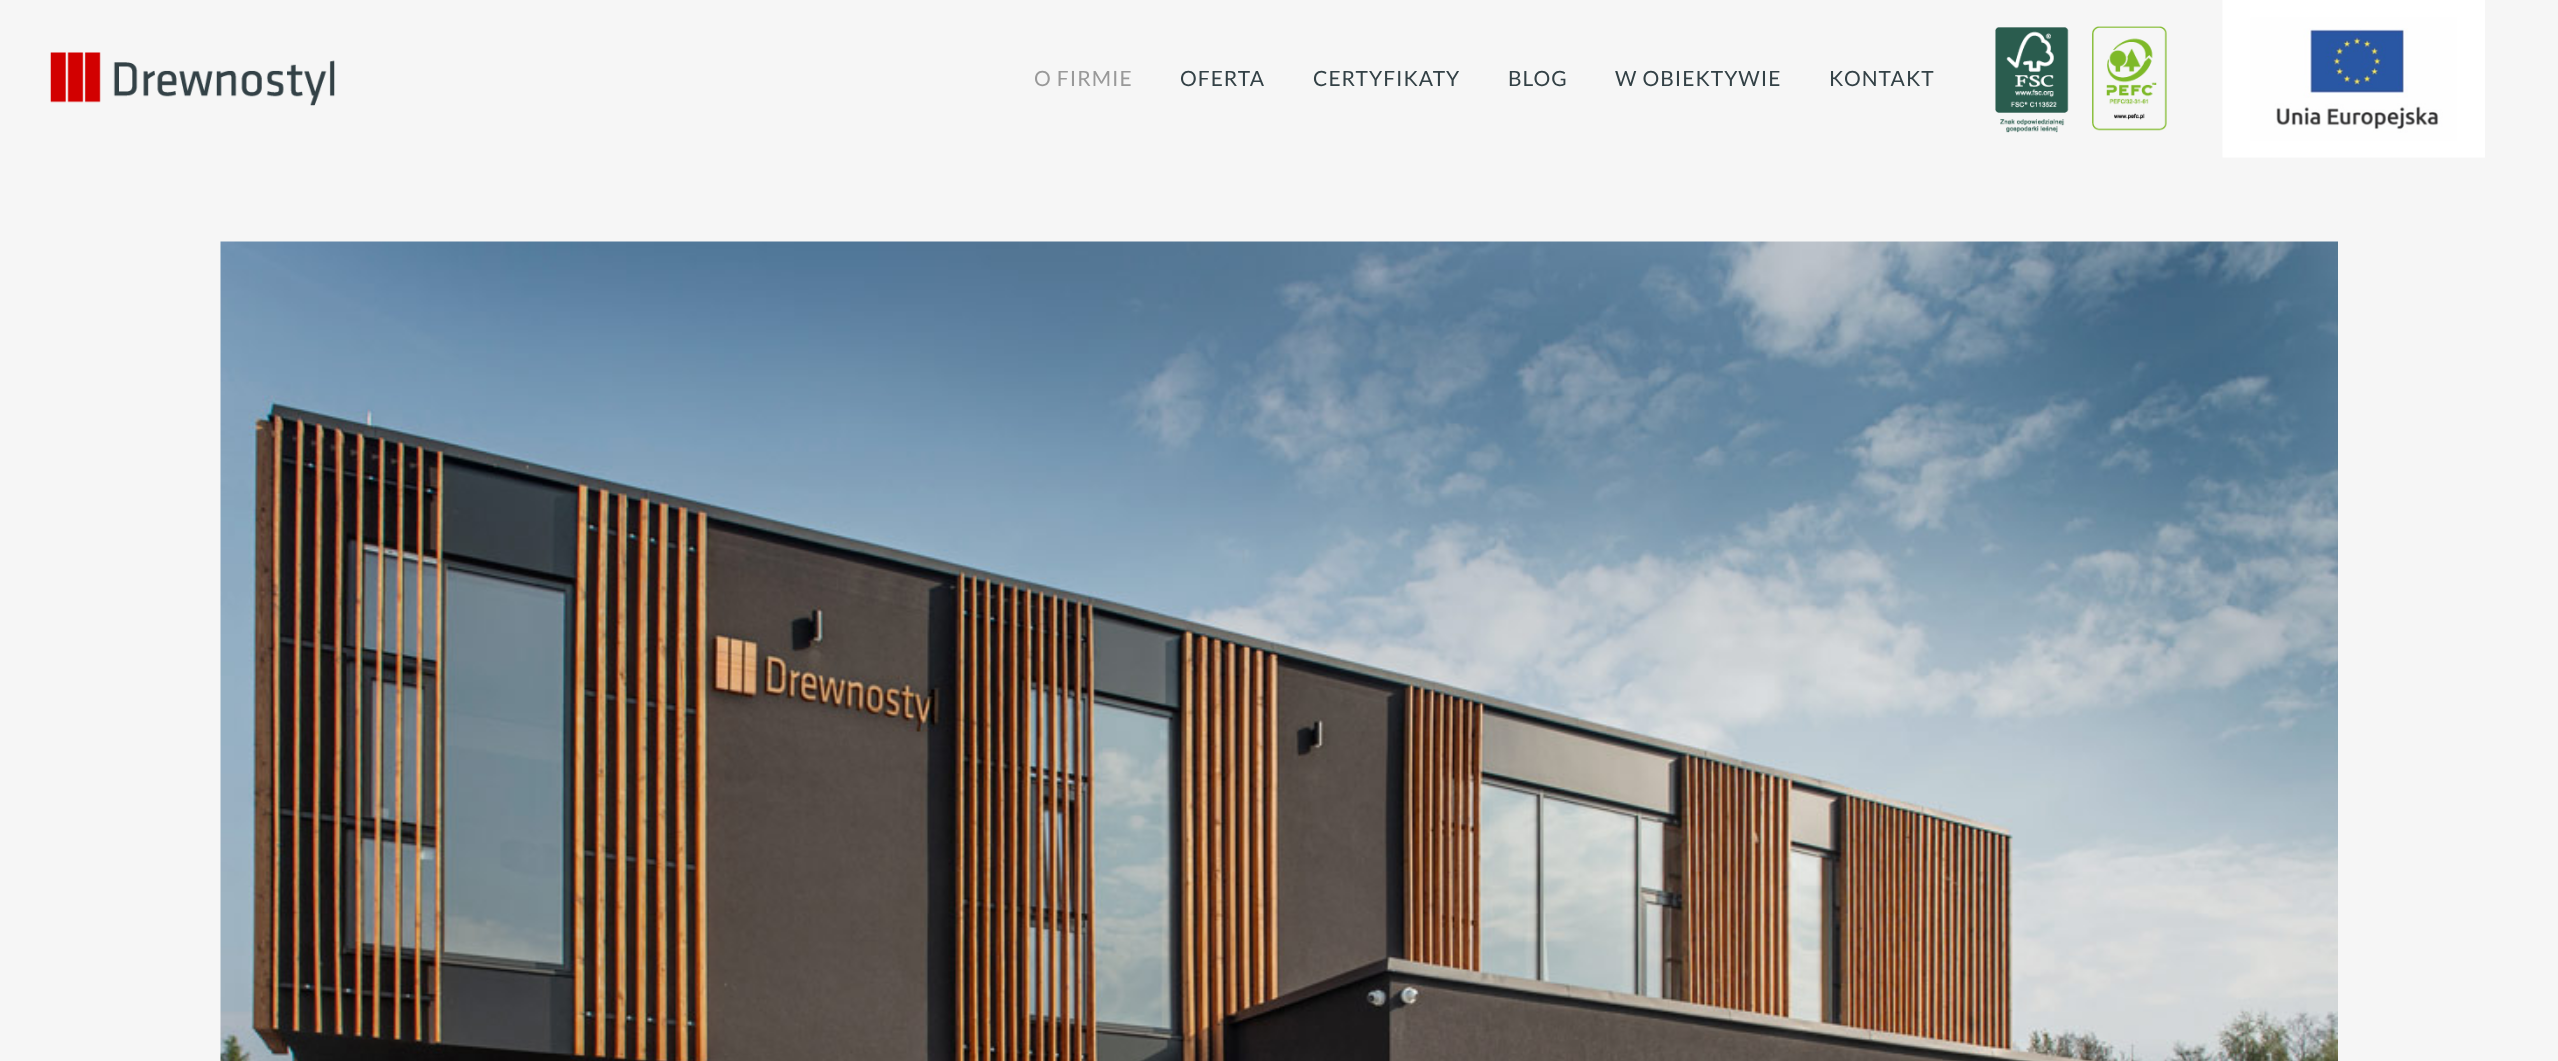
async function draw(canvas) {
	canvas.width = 2558;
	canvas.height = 1061;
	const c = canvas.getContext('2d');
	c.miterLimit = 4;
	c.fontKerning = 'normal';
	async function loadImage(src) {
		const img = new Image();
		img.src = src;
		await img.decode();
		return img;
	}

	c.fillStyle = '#f6f6f6';
	c.fillRect(0, 0, 2558, 1061);
	c.drawImage(await loadImage('img1.png'), 50, 52, 285, 54);
	c.letterSpacing = '1px';
	c.font = '21px Lato';
	c.fillStyle = '#999';
	c.fillText('O FIRMIE', 1034, 86);
	c.fillStyle = '#334146';
	for (const [text, x, y] of [
		['OFERTA', 1180, 86],
		['CERTYFIKATY', 1313, 86],
		['BLOG', 1508, 86],
		['W OBIEKTYWIE', 1615, 86],
		['KONTAKT', 1829, 86],
	]) {
		c.fillText(text, x, y);
	}
	c.drawImage(await loadImage('img2.png'), 1995, 26, 172, 107);
	c.drawImage(await loadImage('img3.png'), 2222, 0, 263, 158);
	c.drawImage(await loadImage('img4.png'), 220, 241, 2118, 820);
}

draw(document.querySelector('canvas'));
